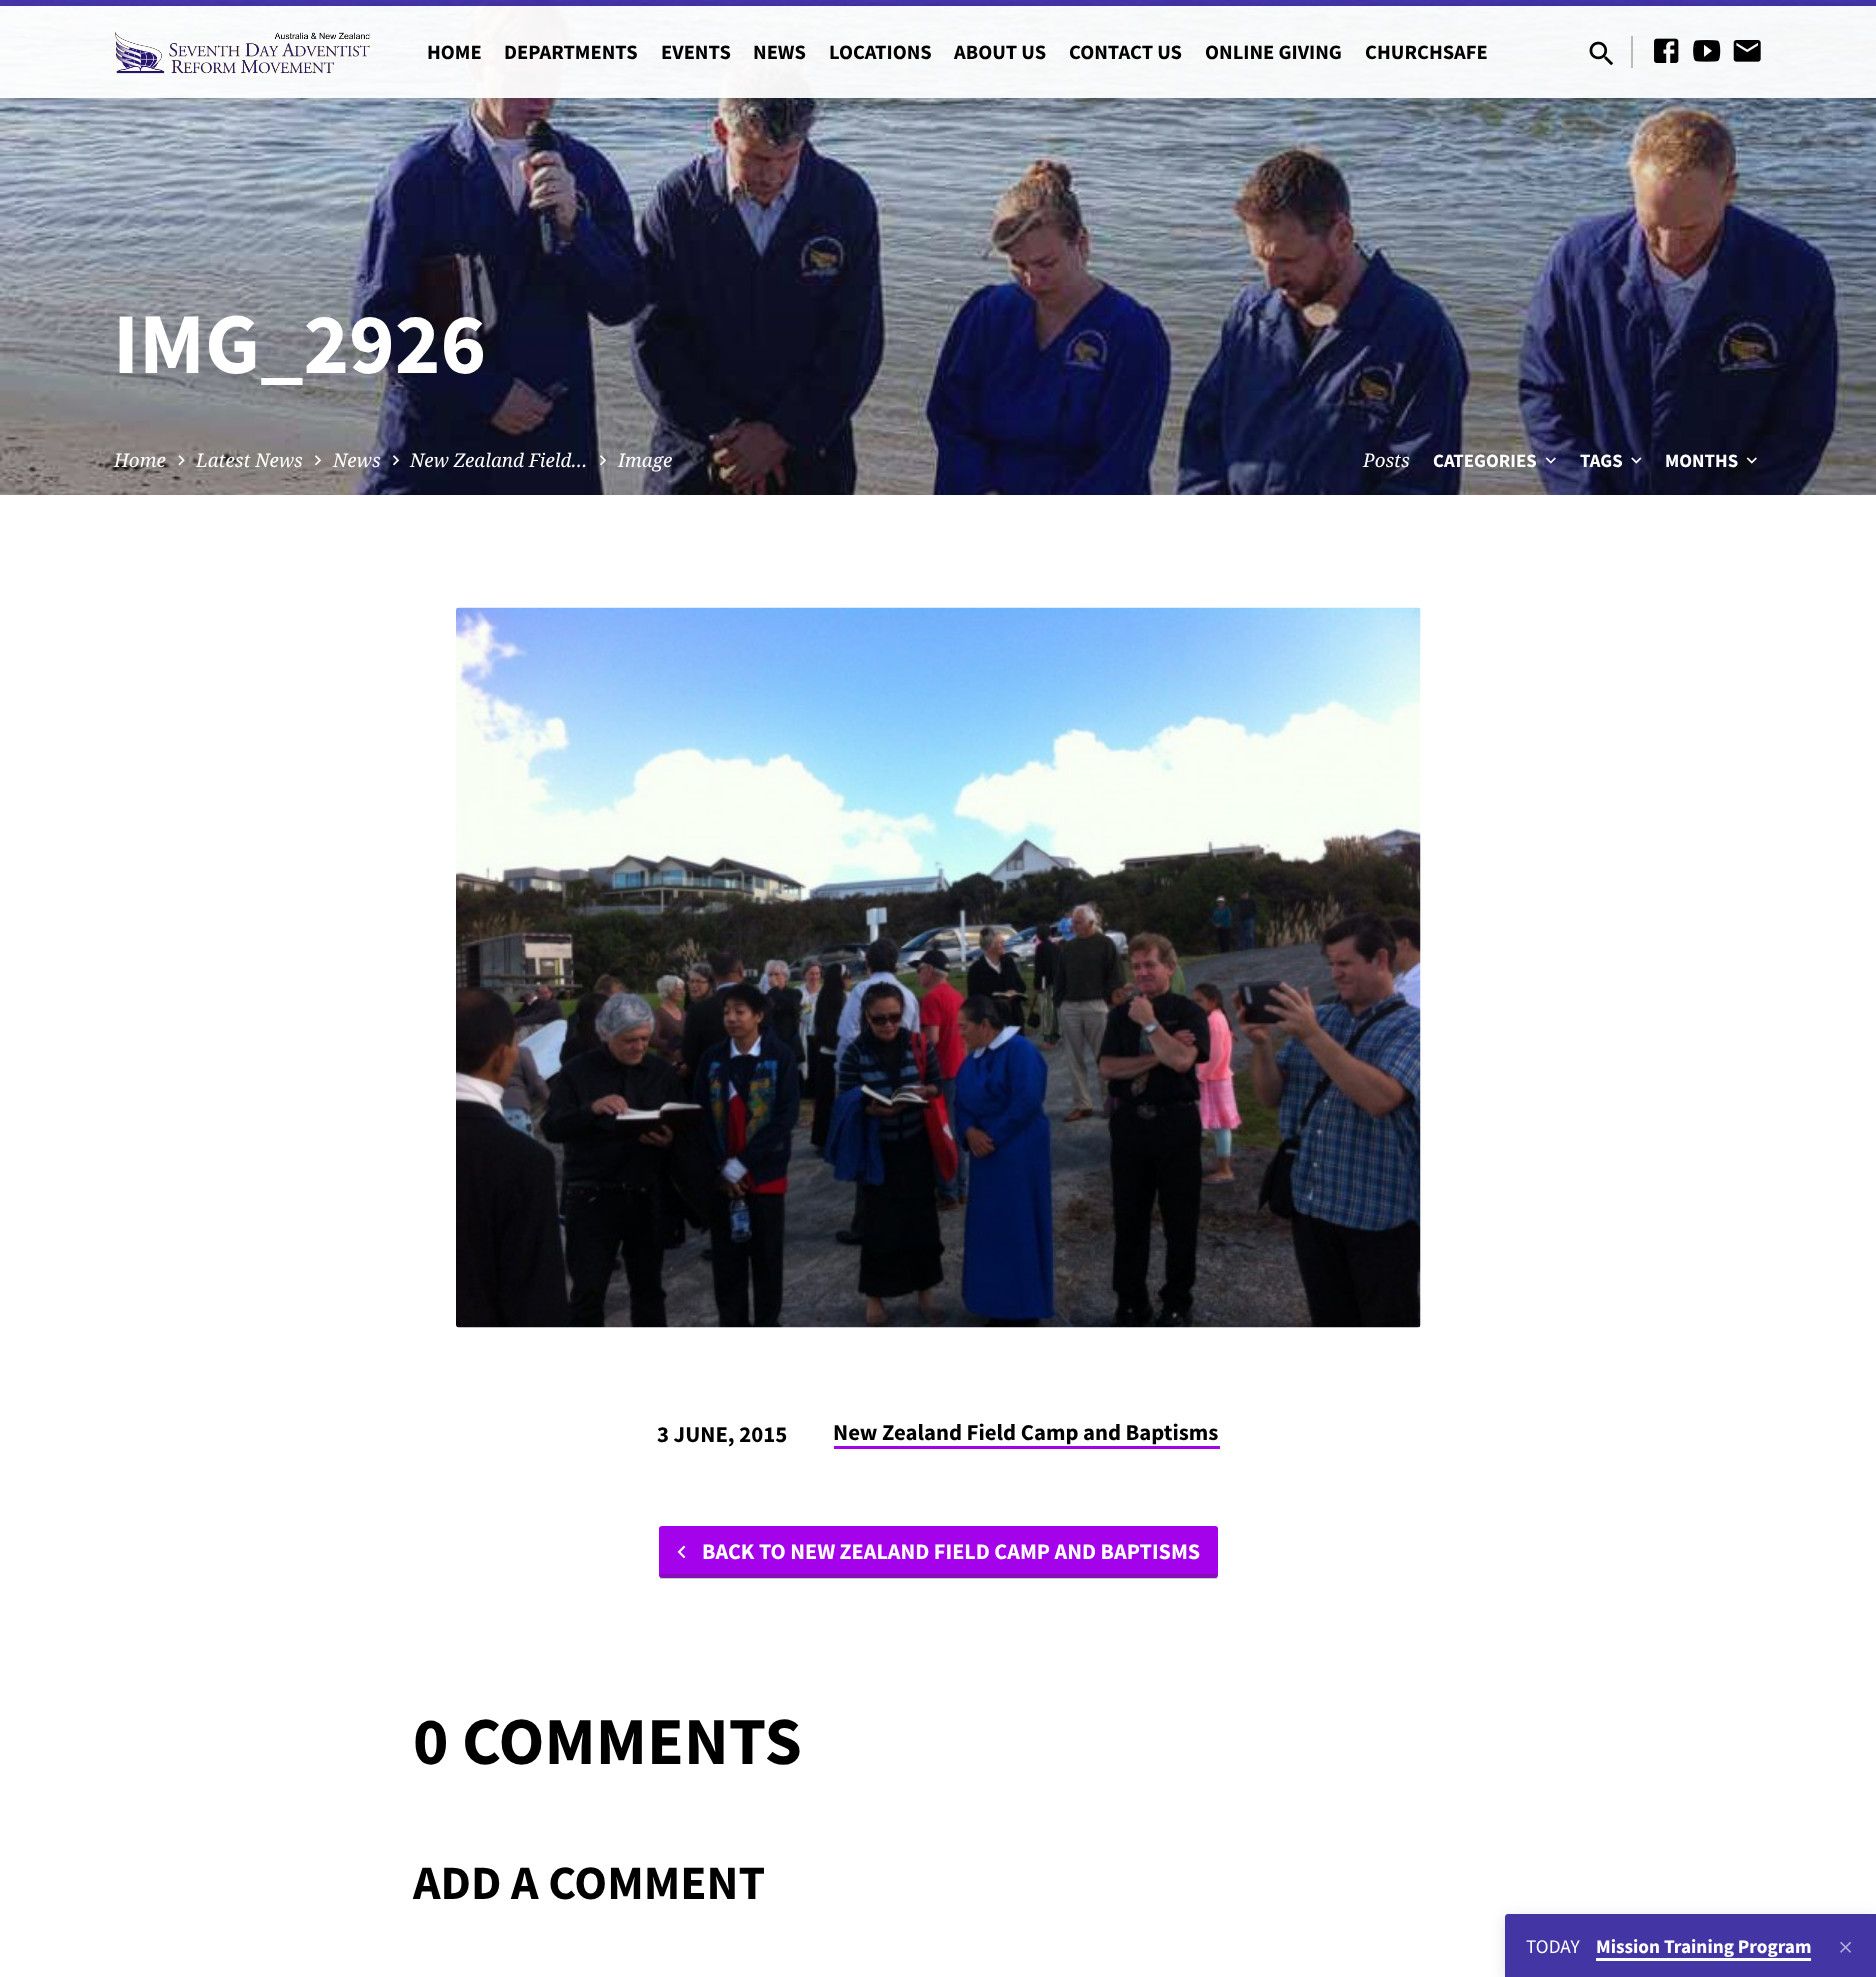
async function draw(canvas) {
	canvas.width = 1876;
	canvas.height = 1977;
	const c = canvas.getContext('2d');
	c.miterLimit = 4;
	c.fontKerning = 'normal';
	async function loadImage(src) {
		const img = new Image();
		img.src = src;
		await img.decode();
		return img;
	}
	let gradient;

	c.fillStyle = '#fff';
	c.fillRect(0, 0, 1876, 1977);
	c.drawImage(await loadImage('img6.png'), 0, 0, 1876, 495);
	c.fillStyle = '#4130adf2';
	c.fillRect(0, 0, 1876, 6);
	c.fillStyle = '#fffffff2';
	c.fillRect(0, 6, 1876, 92);
	c.save();
	c.beginPath();
	c.moveTo(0, 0);
	c.lineTo(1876, 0);
	c.lineTo(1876, 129);
	c.lineTo(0, 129);
	c.closePath();
	c.moveTo(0, 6);
	c.lineTo(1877, 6);
	c.lineTo(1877, 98);
	c.lineTo(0, 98);
	c.closePath();
	c.clip('evenodd');
	c.fillStyle = '#00000024';
	c.filter = 'blur(9px)';
	c.beginPath();
	c.rect(0, 9, 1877, 92);
	c.fill();
	c.filter = 'none';
	c.restore();
	c.drawImage(await loadImage('img1.png'), 113, 30, 257, 45);
	c.font = 'bold 20.5px Source Sans Pro';
	c.fillStyle = '#000';
	for (const [text, x, y] of [
		['HOME', 427, 59],
		['DEPARTMENTS', 504, 59],
		['EVENTS', 661, 59],
		['NEWS', 753, 59],
		['LOCATIONS', 829, 59],
		['ABOUT US', 954, 59],
		['CONTACT US', 1069, 59],
		['ONLINE GIVING', 1205, 59],
		['CHURCHSAFE', 1365, 59],
	]) {
		c.fillText(text, x, y);
	}
	c.drawImage(await loadImage('img2.png'), 1589, 41, 25, 25);
	c.fillStyle = '#bbb';
	c.fillRect(1631, 36, 2, 32);
	c.drawImage(await loadImage('img3.png'), 1654, 38, 25, 25);
	c.drawImage(await loadImage('img4.png'), 1693, 40, 28, 22);
	c.drawImage(await loadImage('img5.png'), 1733, 40, 28, 22);
	gradient = c.createLinearGradient(938, -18, 938, 495);
	gradient.addColorStop(0, '#00000000');
	gradient.addColorStop(0.36, '#00000000');
	gradient.addColorStop(0.76, '#00000047');
	gradient.addColorStop(1, '#00000047');
	c.fillStyle = gradient;
	c.fillRect(0, 182, 1876, 313);
	c.font = 'bold 86.5px Source Sans Pro';
	c.fillStyle = '#fff';
	c.fillText('IMG_2926', 113, 373);
	c.font = 'italic 18.75px Noto Serif';
	c.fillText('Home', 114, 467);
	c.drawImage(await loadImage('img7.png'), 178, 455, 7, 11);
	c.fillText('Latest News', 196, 467);
	c.drawImage(await loadImage('img8.png'), 315, 455, 7, 11);
	c.fillText('News', 333, 467);
	c.drawImage(await loadImage('img9.png'), 393, 455, 7, 11);
	c.fillText('New Zealand Field…', 410, 467);
	c.drawImage(await loadImage('img10.png'), 600, 455, 7, 11);
	c.fillText('Image', 618, 467);
	c.fillText('Posts', 1363, 467);
	c.font = 'bold 18.75px Source Sans Pro';
	c.fillText('CATEGORIES', 1433, 467);
	c.drawImage(await loadImage('img11.png'), 1545, 457, 11, 7);
	c.fillText('TAGS', 1580, 467);
	c.drawImage(await loadImage('img12.png'), 1631, 457, 11, 7);
	c.fillText('MONTHS', 1665, 467);
	c.drawImage(await loadImage('img13.png'), 1746, 457, 11, 7);
	c.drawImage(await loadImage('img14.png'), 456, 607, 965, 721);
	c.font = 'bold 22.75px Source Sans Pro';
	c.fillStyle = '#000';
	c.fillText('3 JUNE, 2015', 657, 1442);
	c.fillText('New Zealand Field Camp and Baptisms', 833, 1440);
	c.fillStyle = '#a402ea';
	c.fillRect(834, 1446, 386, 3);
	c.beginPath();
	c.roundRect(659, 1526, 559, 52, 3);
	c.fill();
	c.fillStyle = '#32323240';
	c.fillRect(660, 1574, 557, 5);
	c.drawImage(await loadImage('img15.png'), 677, 1545, 9, 14);
	c.font = 'bold 22.2px Source Sans Pro';
	c.fillStyle = '#fff';
	c.fillText('BACK TO NEW ZEALAND FIELD CAMP AND BAPTISMS', 702, 1559);
	c.font = 'bold 67.25px Source Sans Pro';
	c.fillStyle = '#000';
	c.fillText('0 COMMENTS', 413, 1764);
	c.font = 'bold 48px Source Sans Pro';
	c.fillText('ADD A COMMENT', 413, 1899);
	c.fillStyle = '#0000001f';
	c.filter = 'blur(7.5px)';
	c.beginPath();
	c.roundRect(1505, 1917, 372, 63, 3);
	c.fill();
	c.filter = 'none';
	c.fillStyle = '#4a3ab1';
	c.beginPath();
	c.moveTo(1508, 1914);
	c.lineTo(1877, 1914);
	c.lineTo(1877, 1977);
	c.lineTo(1505, 1977);
	c.lineTo(1505, 1917);
	c.bezierCurveTo(1505, 1915.5, 1506.5, 1914, 1508, 1914);
	c.closePath();
	c.fill();
	c.fillStyle = '#00000012';
	c.fillRect(1505, 1914, 371, 63);
	c.font = '19.25px Source Sans Pro';
	c.fillStyle = '#fff';
	c.fillText('TODAY', 1526, 1953);
	c.font = 'bold 19.25px Source Sans Pro';
	c.fillText('Mission Training Program', 1596, 1953);
	c.fillRect(1596, 1958, 215, 3);
	c.drawImage(await loadImage('img16.png'), 1840, 1941, 11, 12);
}

draw(document.querySelector('canvas'));
